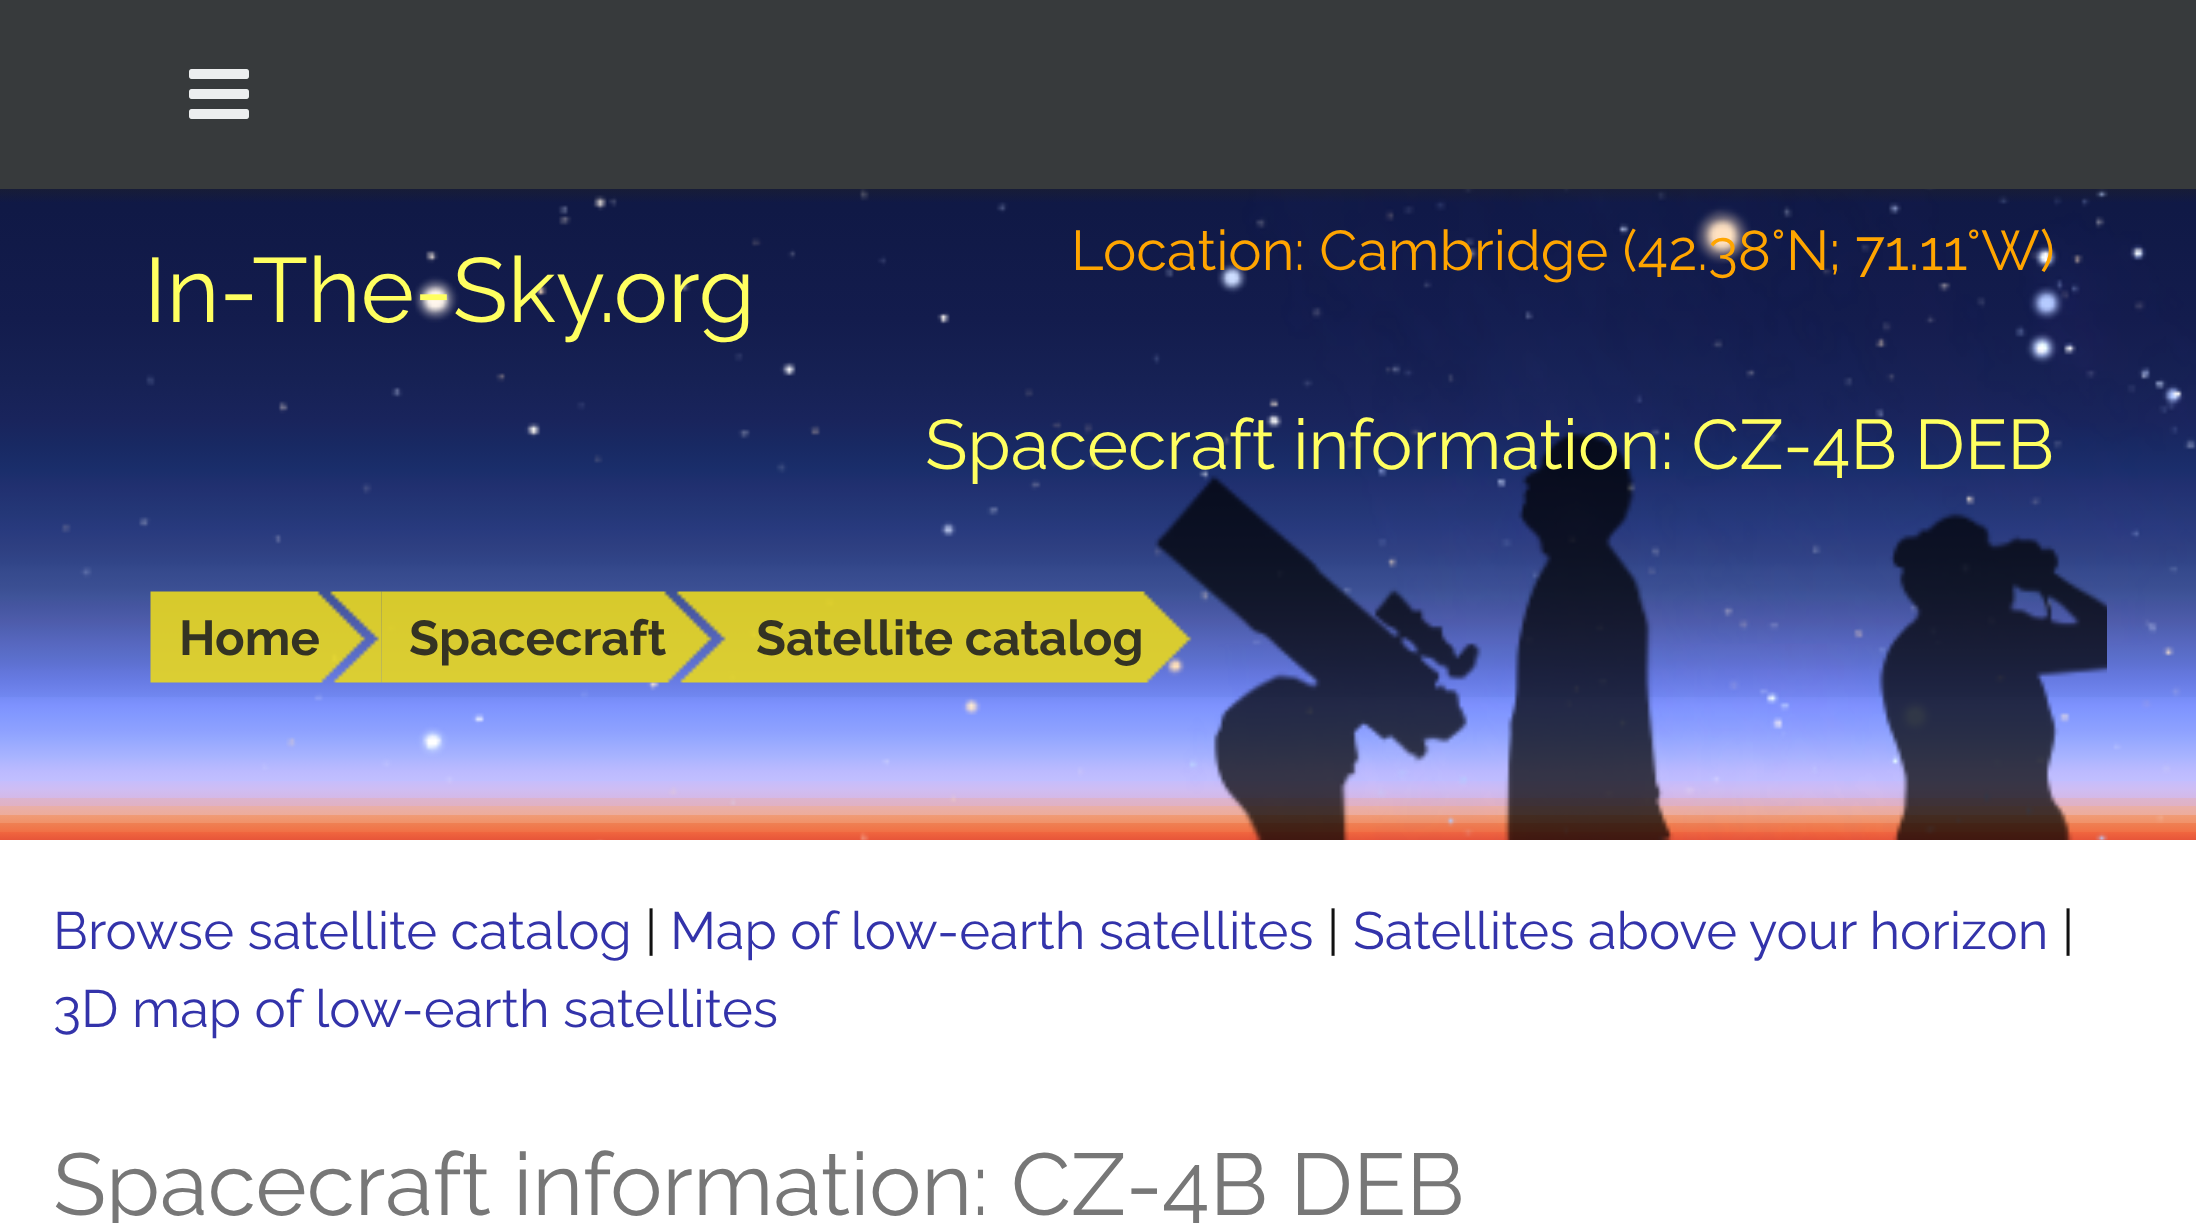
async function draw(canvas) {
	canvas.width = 2196;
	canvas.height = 1223;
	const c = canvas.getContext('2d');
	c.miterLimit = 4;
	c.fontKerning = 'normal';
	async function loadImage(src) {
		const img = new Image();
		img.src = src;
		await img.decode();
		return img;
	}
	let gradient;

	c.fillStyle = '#fff';
	c.fillRect(0, 0, 2196, 1223);
	c.fillStyle = '#373a3c';
	c.fillRect(0, 0, 2196, 189);
	c.drawImage(await loadImage('img1.png'), 189, 69, 60, 50);
	gradient = c.createLinearGradient(1099, 0, 1099, 840);
	gradient.addColorStop(0, '#10173d');
	gradient.addColorStop(0.25, '#101946');
	gradient.addColorStop(0.38, '#131c4d');
	gradient.addColorStop(0.45, '#162154');
	gradient.addColorStop(0.5, '#19245c');
	gradient.addColorStop(0.53, '#182963');
	gradient.addColorStop(0.56, '#1a2e6b');
	gradient.addColorStop(0.58, '#213070');
	gradient.addColorStop(0.61, '#243777');
	gradient.addColorStop(0.63, '#283a7e');
	gradient.addColorStop(0.65, '#2e3f81');
	gradient.addColorStop(0.67, '#314588');
	gradient.addColorStop(0.68, '#364a8d');
	gradient.addColorStop(0.7, '#3b4f93');
	gradient.addColorStop(0.71, '#3f5499');
	gradient.addColorStop(0.72, '#45559f');
	gradient.addColorStop(0.73, '#4959a5');
	gradient.addColorStop(0.74, '#4e5cab');
	gradient.addColorStop(0.75, '#5061b3');
	gradient.addColorStop(0.76, '#5565bb');
	gradient.addColorStop(0.77, '#5869c2');
	gradient.addColorStop(0.78, '#5a6ec9');
	gradient.addColorStop(0.79, '#5e71d1');
	gradient.addColorStop(0.8, '#6376db');
	gradient.addColorStop(0.81, '#677be3');
	gradient.addColorStop(0.82, '#6d81ea');
	gradient.addColorStop(0.83, '#7188f1');
	gradient.addColorStop(0.83, '#768cf6');
	gradient.addColorStop(0.84, '#7e92fe');
	gradient.addColorStop(0.85, '#8298ff');
	gradient.addColorStop(0.86, '#889dff');
	gradient.addColorStop(0.87, '#8ea1ff');
	gradient.addColorStop(0.88, '#95a8ff');
	gradient.addColorStop(0.89, '#9fadff');
	gradient.addColorStop(0.9, '#a7b3ff');
	gradient.addColorStop(0.91, '#b3b7ff');
	gradient.addColorStop(0.92, '#bdbbff');
	gradient.addColorStop(0.93, '#c1bfff');
	gradient.addColorStop(0.93, '#c6bdfc');
	gradient.addColorStop(0.94, '#cfbdf3');
	gradient.addColorStop(0.95, '#d4b9e7');
	gradient.addColorStop(0.95, '#d9b7dc');
	gradient.addColorStop(0.95, '#dcb4ce');
	gradient.addColorStop(0.96, '#e1b1c3');
	gradient.addColorStop(0.96, '#e5afb7');
	gradient.addColorStop(0.96, '#e9afa9');
	gradient.addColorStop(0.97, '#edac9c');
	gradient.addColorStop(0.97, '#efa78c');
	gradient.addColorStop(0.97, '#f09c77');
	gradient.addColorStop(0.98, '#f19168');
	gradient.addColorStop(0.98, '#f1885d');
	gradient.addColorStop(0.98, '#ef8053');
	gradient.addColorStop(0.99, '#f17146');
	gradient.addColorStop(0.99, '#f1673f');
	gradient.addColorStop(1, '#e75539');
	c.fillStyle = gradient;
	c.fillRect(0, 189, 2196, 651);
	c.drawImage(await loadImage('img2.png'), 61, 189, 2135, 651);
	gradient = c.createLinearGradient(1099, 175, 1099, 203);
	gradient.addColorStop(0, '#222222cc');
	gradient.addColorStop(1, '#22222200');
	c.fillStyle = gradient;
	c.fillRect(0, 189, 2196, 13);
	c.font = '91px Raleway';
	c.fillStyle = '#ffff60';
	c.fillText('In-The-Sky.org', 144, 322);
	c.font = '56px Raleway';
	c.fillStyle = '#ffa500';
	c.fillText('Location: Cambridge (42.38°N; 71.11°W)', 1071, 270);
	c.drawImage(await loadImage('img8.png'), 1154, 432, 953, 408);
	c.font = '70px Raleway';
	c.fillStyle = '#ffff60';
	c.fillText('Spacecraft information: CZ-4B DEB', 925, 469);
	c.drawImage(await loadImage('img3.png'), 150, 591, 216, 92);
	c.drawImage(await loadImage('img4.png'), 330, 591, 52, 92);
	c.drawImage(await loadImage('img5.png'), 381, 591, 331, 92);
	c.font = 'bold 49px Raleway';
	c.fillStyle = '#343323';
	c.fillText('Spacecraft', 409, 655);
	c.drawImage(await loadImage('img6.png'), 676, 591, 52, 92);
	c.drawImage(await loadImage('img7.png'), 728, 591, 464, 92);
	c.fillText('Home', 179, 655);
	c.fillText('Satellite catalog', 756, 655);
	c.font = '52.5px Raleway';
	c.fillStyle = '#33a';
	c.fillText('Browse satellite catalog', 53, 949);
	c.fillStyle = '#111';
	c.fillText('|', 645, 949);
	c.fillStyle = '#33a';
	c.fillText('Map of low-earth satellites', 670, 949);
	c.fillStyle = '#111';
	c.fillText('|', 1327, 949);
	c.fillStyle = '#33a';
	c.fillText('Satellites above your horizon', 1353, 949);
	c.fillStyle = '#111';
	c.fillText('|', 2062, 949);
	c.fillStyle = '#33a';
	c.fillText('3D map of low-earth satellites', 53, 1027);
	c.font = '87.5px Raleway';
	c.fillStyle = '#777';
	c.fillText('Spacecraft information: CZ-4B DEB', 53, 1215);
}

draw(document.querySelector('canvas'));
